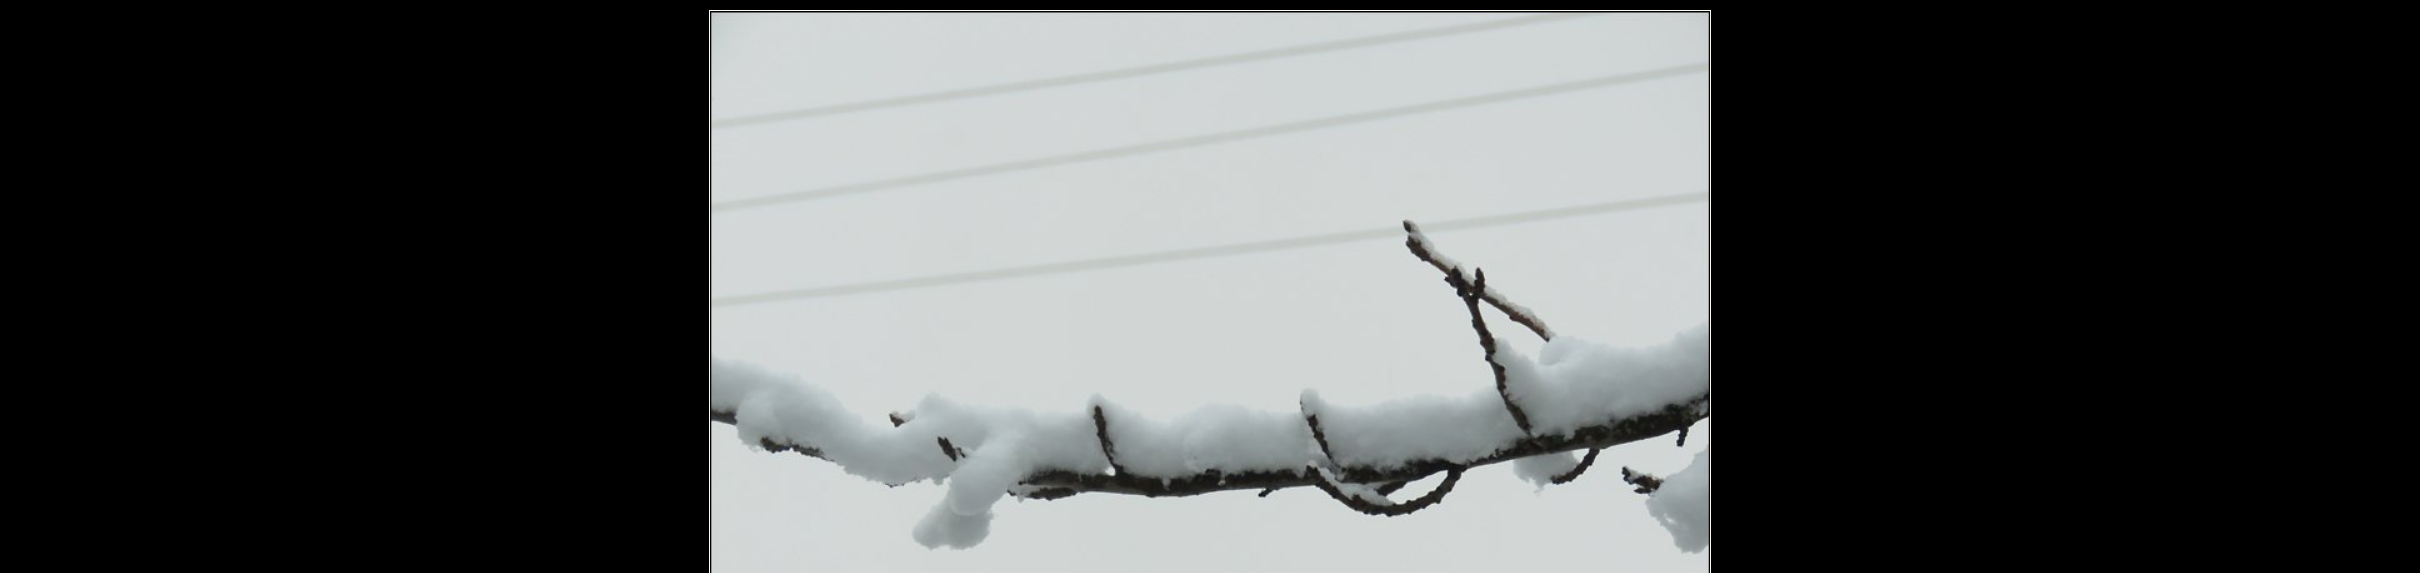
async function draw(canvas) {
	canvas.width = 2420;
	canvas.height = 573;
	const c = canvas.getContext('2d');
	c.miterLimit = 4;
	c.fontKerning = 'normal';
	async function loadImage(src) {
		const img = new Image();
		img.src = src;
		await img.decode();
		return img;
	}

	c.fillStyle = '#000';
	c.fillRect(0, 0, 2420, 573);
	c.strokeStyle = '#fffbf0';
	c.strokeRect(709.5, 10.5, 1001, 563);
	c.drawImage(await loadImage('img1.png'), 710, 11, 1000, 562);
}

draw(document.querySelector('canvas'));
